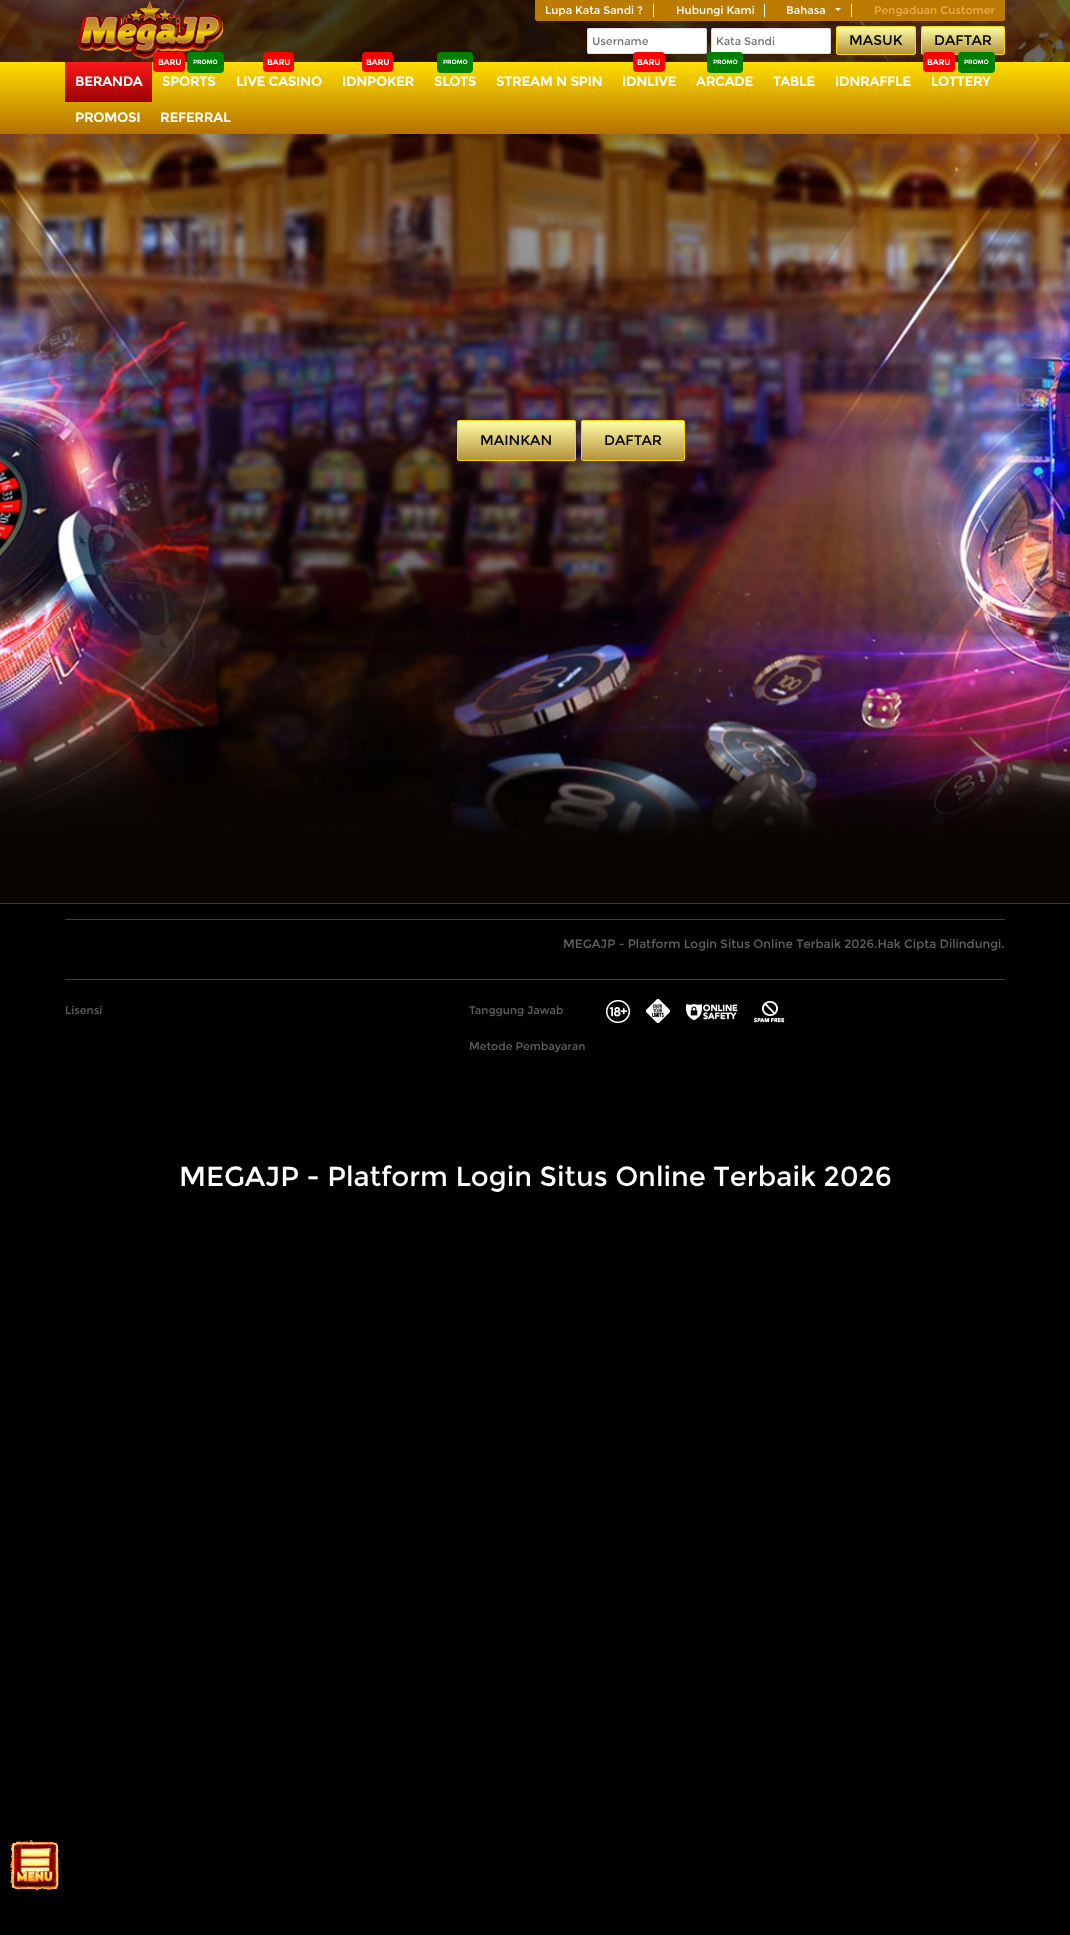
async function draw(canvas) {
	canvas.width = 1070;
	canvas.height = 1935;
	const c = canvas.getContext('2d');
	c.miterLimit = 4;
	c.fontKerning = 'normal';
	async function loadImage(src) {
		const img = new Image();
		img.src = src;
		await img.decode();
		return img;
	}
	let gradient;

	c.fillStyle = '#000';
	c.fillRect(0, 0, 1070, 1935);
	c.drawImage(await loadImage('img1.png'), 0, 0, 1070, 62);
	c.drawImage(await loadImage('img2.png'), 77, 1, 146, 58);
	c.fillStyle = '#bb7a00';
	c.beginPath();
	c.roundRect(535, 0, 470, 21, [0, 0, 2, 2]);
	c.fill();
	c.fillStyle = '#fff';
	c.fillRect(653, 4, 1, 13);
	c.font = '11px Montserrat';
	c.fillText('Lupa Kata Sandi ?', 545, 14);
	c.fillRect(764, 4, 1, 13);
	c.fillText('Hubungi Kami', 676, 14);
	c.fillRect(851, 4, 1, 13);
	c.fillText('Bahasa', 786, 14);
	c.beginPath();
	c.moveTo(835, 8);
	c.lineTo(841, 8);
	c.lineTo(838, 11);
	c.closePath();
	c.fill();
	c.fillStyle = '#f0ad4e';
	c.fillText('Pengaduan Customer', 874, 14);
	c.fillStyle = '#fff';
	c.beginPath();
	c.roundRect(587, 28, 120, 26, 2);
	c.fill();
	c.beginPath();
	c.roundRect(587.5, 28.5, 119, 25, 1.5);
	c.strokeStyle = '#8395a54d';
	c.stroke();
	c.fillStyle = '#757575';
	c.fillText('Username', 592, 45);
	c.fillStyle = '#fff';
	c.beginPath();
	c.roundRect(711, 28, 120, 26, 2);
	c.fill();
	c.beginPath();
	c.roundRect(711.5, 28.5, 119, 25, 1.5);
	c.stroke();
	c.fillStyle = '#757575';
	c.fillText('Kata Sandi', 716, 45);
	c.save();
	c.beginPath();
	c.roundRect(836, 26, 80, 29, 2);
	c.clip();
	gradient = c.createLinearGradient(876, 27, 876, 54);
	gradient.addColorStop(0, '#fffea6');
	gradient.addColorStop(1, '#b6923c');
	c.fillStyle = gradient;
	c.fillRect(836, 27, 80, 27);
	c.restore();
	c.beginPath();
	c.roundRect(836.5, 26.5, 79, 28, 1.5);
	c.strokeStyle = '#f9d500';
	c.stroke();
	c.font = '14px Montserrat';
	c.fillStyle = '#000';
	c.fillText('MASUK', 849, 45);
	c.save();
	c.beginPath();
	c.roundRect(921, 26, 84, 29, 2);
	c.clip();
	gradient = c.createLinearGradient(963, 27, 963, 54);
	gradient.addColorStop(0, '#fffea6');
	gradient.addColorStop(1, '#b6923c');
	c.fillStyle = gradient;
	c.fillRect(921, 27, 84, 27);
	c.restore();
	c.beginPath();
	c.roundRect(921.5, 26.5, 83, 28, 1.5);
	c.stroke();
	c.fillText('DAFTAR', 934, 45);
	gradient = c.createLinearGradient(535, 62, 535, 134);
	gradient.addColorStop(0, '#ffde00');
	gradient.addColorStop(1, '#b57100');
	c.fillStyle = gradient;
	c.fillRect(0, 62, 1070, 72);
	gradient = c.createLinearGradient(109, 62, 109, 102);
	gradient.addColorStop(0, '#fe1919');
	gradient.addColorStop(1, '#980101');
	c.fillStyle = gradient;
	c.fillRect(65, 62, 87, 40);
	c.font = 'bold 13px Montserrat';
	c.fillStyle = '#fff';
	c.fillText('BERANDA', 75, 86);
	c.fillStyle = '#f00';
	c.beginPath();
	c.roundRect(153, 52, 32, 20, 4);
	c.fill();
	c.font = 'bold 8px Montserrat';
	c.fillStyle = '#fff';
	c.fillText('BARU', 158, 65);
	c.fillStyle = '#008000';
	c.beginPath();
	c.roundRect(187, 52, 37, 21, 4);
	c.fill();
	c.font = 'bold 6px Montserrat';
	c.fillStyle = '#fff';
	c.fillText('PROMO', 193, 64);
	c.font = 'bold 13px Montserrat';
	c.fillText('SPORTS', 162, 86);
	c.fillStyle = '#f00';
	c.beginPath();
	c.roundRect(263, 52, 31, 20, 4);
	c.fill();
	c.font = 'bold 8px Montserrat';
	c.fillStyle = '#fff';
	c.fillText('BARU', 267, 65);
	c.font = 'bold 13px Montserrat';
	c.fillText('LIVE CASINO', 236, 86);
	c.fillStyle = '#f00';
	c.beginPath();
	c.roundRect(362, 52, 31, 20, 4);
	c.fill();
	c.font = 'bold 8px Montserrat';
	c.fillStyle = '#fff';
	c.fillText('BARU', 366, 65);
	c.font = 'bold 13px Montserrat';
	c.fillText('IDNPOKER', 342, 86);
	c.fillStyle = '#008000';
	c.beginPath();
	c.roundRect(437, 52, 36, 21, 4);
	c.fill();
	c.font = 'bold 6px Montserrat';
	c.fillStyle = '#fff';
	c.fillText('PROMO', 443, 64);
	c.font = 'bold 13px Montserrat';
	c.fillText('SLOTS', 434, 86);
	c.fillText('STREAM N SPIN', 496, 86);
	c.fillStyle = '#f00';
	c.beginPath();
	c.roundRect(633, 52, 32, 20, 4);
	c.fill();
	c.font = 'bold 8px Montserrat';
	c.fillStyle = '#fff';
	c.fillText('BARU', 637, 65);
	c.font = 'bold 13px Montserrat';
	c.fillText('IDNLIVE', 622, 86);
	c.fillStyle = '#008000';
	c.beginPath();
	c.roundRect(707, 52, 36, 21, 4);
	c.fill();
	c.font = 'bold 6px Montserrat';
	c.fillStyle = '#fff';
	c.fillText('PROMO', 713, 64);
	c.font = 'bold 13px Montserrat';
	for (const [text, x, y] of [
		['ARCADE', 696, 86],
		['TABLE', 773, 86],
		['IDNRAFFLE', 835, 86],
	]) {
		c.fillText(text, x, y);
	}
	c.fillStyle = '#f00';
	c.beginPath();
	c.roundRect(923, 52, 32, 20, 4);
	c.fill();
	c.font = 'bold 8px Montserrat';
	c.fillStyle = '#fff';
	c.fillText('BARU', 927, 65);
	c.fillStyle = '#008000';
	c.beginPath();
	c.roundRect(958, 52, 37, 21, 4);
	c.fill();
	c.font = 'bold 6px Montserrat';
	c.fillStyle = '#fff';
	c.fillText('PROMO', 964, 64);
	c.font = 'bold 13px Montserrat';
	for (const [text, x, y] of [
		['LOTTERY', 931, 86],
		['PROMOSI', 75, 122],
		['REFERRAL', 160, 122],
	]) {
		c.fillText(text, x, y);
	}
	c.drawImage(await loadImage('img3.png'), 0, 134, 1070, 769);
	c.save();
	c.beginPath();
	c.roundRect(457, 420, 119, 41, 2);
	c.clip();
	gradient = c.createLinearGradient(517, 421, 517, 460);
	gradient.addColorStop(0, '#fffea6');
	gradient.addColorStop(1, '#b6923c');
	c.fillStyle = gradient;
	c.fillRect(457, 421, 119, 39);
	c.restore();
	c.beginPath();
	c.roundRect(457.5, 420.5, 118, 40, 1.5);
	c.stroke();
	c.font = '14px Montserrat';
	c.fillStyle = '#000';
	c.fillText('MAINKAN', 480, 445);
	c.save();
	c.beginPath();
	c.roundRect(581, 420, 104, 41, 2);
	c.clip();
	gradient = c.createLinearGradient(633, 421, 633, 460);
	gradient.addColorStop(0, '#fffea6');
	gradient.addColorStop(1, '#b6923c');
	c.fillStyle = gradient;
	c.fillRect(581, 421, 104, 39);
	c.restore();
	c.beginPath();
	c.roundRect(581.5, 420.5, 103, 40, 1.5);
	c.stroke();
	c.fillText('DAFTAR', 604, 445);
	c.fillStyle = '#383838';
	c.fillRect(0, 903, 1070, 1);
	c.fillStyle = '#3c3c3c';
	c.fillRect(65, 919, 940, 1);
	c.font = '12px Montserrat';
	c.fillStyle = '#616161';
	c.fillText('MEGAJP - Platform Login Situs Online Terbaik 2026.Hak Cipta Dilindungi.', 563, 948);
	c.fillStyle = '#3c3c3c';
	c.fillRect(65, 979, 940, 1);
	c.font = '11px Montserrat';
	c.fillStyle = '#616161';
	c.fillText('Lisensi', 65, 1014);
	c.fillText('Tanggung Jawab', 469, 1014);
	c.drawImage(await loadImage('img4.png'), 606, 1000, 24, 23);
	c.drawImage(await loadImage('img5.png'), 646, 999, 24, 24);
	c.drawImage(await loadImage('img6.png'), 686, 1004, 52, 16);
	c.drawImage(await loadImage('img7.png'), 754, 1001, 31, 22);
	c.fillText('Metode Pembayaran', 469, 1050);
	c.font = '27.5px Montserrat';
	c.fillStyle = '#fff';
	c.fillText('MEGAJP - Platform Login Situs Online Terbaik 2026', 179, 1186);
	c.drawImage(await loadImage('img8.png'), 10, 1840, 49, 51);
}

draw(document.querySelector('canvas'));
